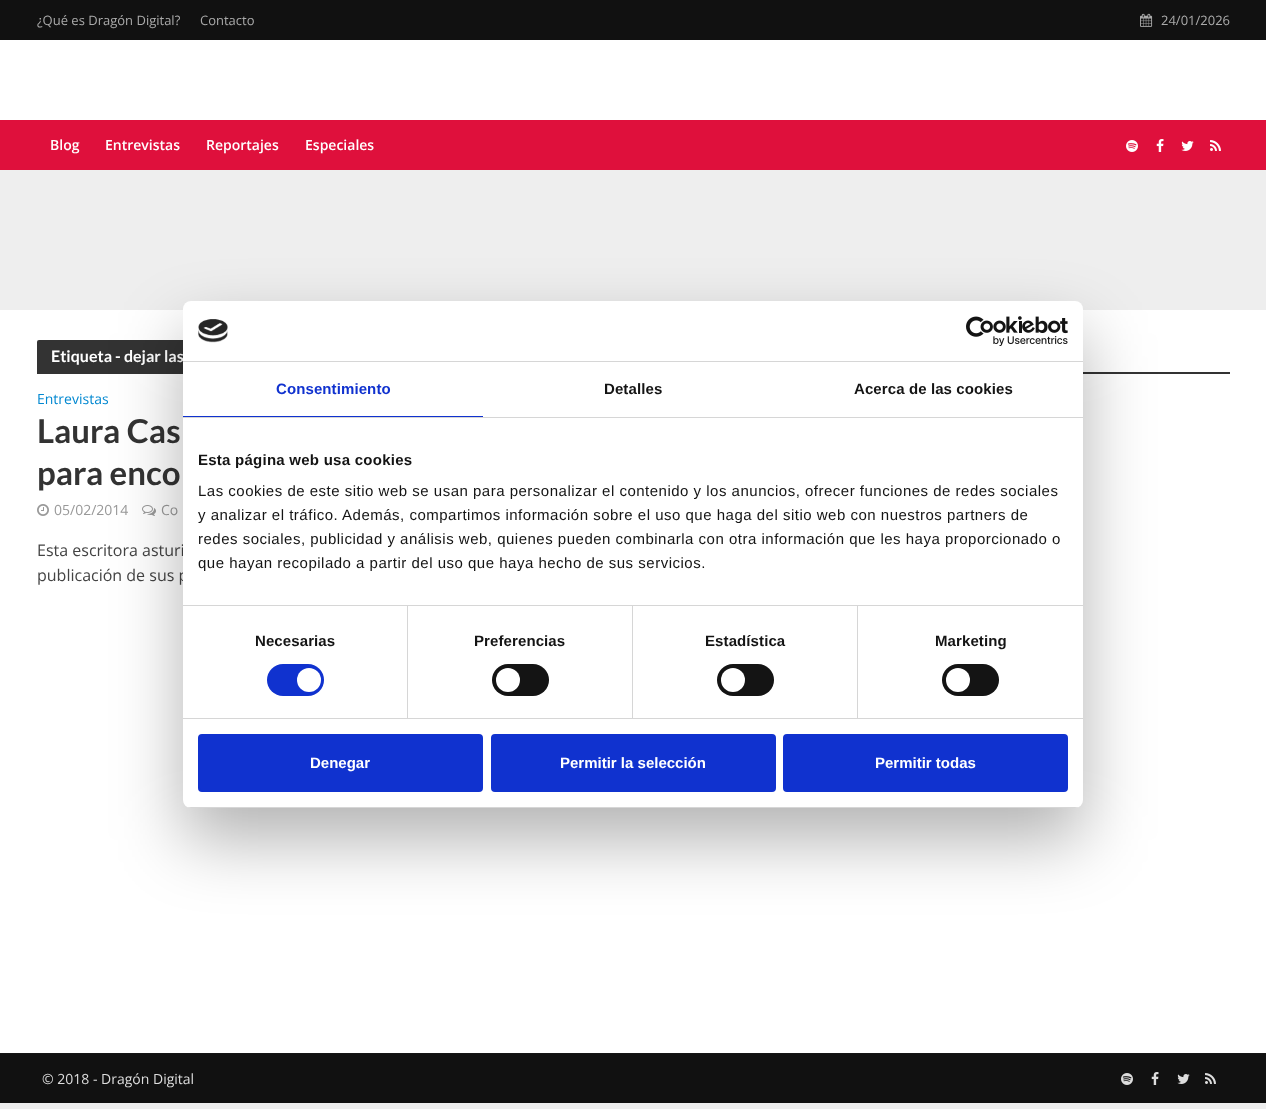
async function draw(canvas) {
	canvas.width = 1266;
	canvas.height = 1109;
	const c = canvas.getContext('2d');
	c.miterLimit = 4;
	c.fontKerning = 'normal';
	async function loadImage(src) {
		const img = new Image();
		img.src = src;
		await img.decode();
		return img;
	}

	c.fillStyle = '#eee';
	c.fillRect(0, 0, 1266, 1109);
	c.fillStyle = '#111';
	c.fillRect(0, 0, 1266, 40);
	c.font = '13px Open Sans';
	c.fillStyle = '#aaa';
	c.fillText('¿Qué es Dragón Digital?', 37, 25);
	c.fillText('Contacto', 200, 25);
	c.drawImage(await loadImage('img1.png'), 1140, 13, 13, 14);
	c.fillText('24/01/2026', 1161, 25);
	c.fillStyle = '#fff';
	c.fillRect(0, 40, 1266, 80);
	c.fillStyle = '#df103c';
	c.fillRect(0, 120, 1266, 50);
	c.font = '600 14px Open Sans';
	c.fillStyle = '#fff';
	for (const [text, x, y] of [
		['Blog', 50, 150],
		['Entrevistas', 105, 150],
		['Reportajes', 206, 150],
		['Especiales', 305, 150],
	]) {
		c.fillText(text, x, y);
	}
	c.drawImage(await loadImage('img2.png'), 1126, 140, 12, 12);
	c.drawImage(await loadImage('img3.png'), 1156, 139, 8, 13);
	c.drawImage(await loadImage('img4.png'), 1181, 141, 13, 10);
	c.drawImage(await loadImage('img5.png'), 1210, 140, 11, 11);
	c.fillStyle = '#111';
	c.fillRect(0, 1053, 1266, 50);
	c.strokeStyle = '#4444441a';
	c.strokeRect(-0.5, 309.5, 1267, 744);
	c.fillStyle = '#eee';
	c.fillRect(0, 309, 1266, 1);
	c.fillStyle = '#fff';
	c.fillRect(0, 310, 1266, 743);
	c.fillStyle = '#333';
	c.beginPath();
	c.roundRect(37, 340, 281, 32, [2, 2, 0, 0]);
	c.fill();
	c.font = 'bold 16px Lato';
	c.fillStyle = '#fff';
	c.fillText('Etiqueta - dejar las', 51, 362);
	c.fillStyle = '#333';
	c.fillRect(37, 372, 1193, 2);
	c.font = '14px Open Sans';
	c.fillStyle = '#0288d1';
	c.fillText('Entrevistas', 37, 404);
	c.font = 'bold 33px Lato';
	c.fillStyle = '#333';
	c.fillText('Laura Cas', 37, 443);
	c.fillText('para enco', 37, 485);
	c.drawImage(await loadImage('img6.png'), 37, 504, 12, 12);
	c.font = '14px Open Sans';
	c.fillStyle = '#999';
	c.fillText('05/02/2014', 54, 515);
	c.drawImage(await loadImage('img7.png'), 142, 505, 14, 11);
	c.fillText('Co', 161, 515);
	c.font = '16px Open Sans';
	c.fillStyle = '#444';
	c.fillText('Esta escritora asturi', 37, 556);
	c.fillText('publicación de sus p', 37, 581);
	c.fillStyle = '#0000004d';
	c.filter = 'blur(34px)';
	c.beginPath();
	c.roundRect(183, 333, 900, 507, 8);
	c.fill();
	c.filter = 'none';
	c.fillStyle = '#fff';
	c.beginPath();
	c.roundRect(183, 301, 900, 507, 8);
	c.fill();
	c.fillStyle = '#d6d6d6';
	c.fillRect(183, 361, 900, 1);
	c.drawImage(await loadImage('img8.png'), 198, 319, 30, 24);
	c.drawImage(await loadImage('img9.png'), 966, 316, 102, 30);
	c.fillRect(183, 417, 900, 1);
	c.fillStyle = '#1032cf';
	c.fillRect(183, 416, 300, 1);
	c.letterSpacing = '0.1px';
	c.font = 'bold 15px Liberation Sans';
	c.fillText('Consentimiento', 276, 394);
	c.fillStyle = '#141414';
	c.fillText('Detalles', 604, 394);
	c.fillText('Acerca de las cookies', 854, 394);
	c.fillStyle = '#d6d6d6';
	c.fillRect(183, 605, 900, 1);
	c.letterSpacing = '0.25px';
	c.fillStyle = '#141414';
	c.fillText('Esta página web usa cookies', 198, 465);
	c.letterSpacing = '0.5px';
	c.font = '15px Liberation Sans';
	for (const [text, x, y] of [
		['Las cookies de este sitio web se usan para personalizar el contenido y los anuncios, ofrecer funciones de redes sociales', 198, 496],
		['y analizar el tráfico. Además, compartimos información sobre el uso que haga del sitio web con nuestros partners de', 198, 520],
		['redes sociales, publicidad y análisis web, quienes pueden combinarla con otra información que les haya proporcionado o', 198, 544],
		['que hayan recopilado a partir del uso que haya hecho de sus servicios.', 198, 568],
	]) {
		c.fillText(text, x, y);
	}
	c.fillStyle = '#d6d6d6';
	c.fillRect(183, 718, 900, 1);
	c.fillRect(407, 606, 1, 112);
	c.letterSpacing = '0.1px';
	c.font = 'bold 15px Liberation Sans';
	c.fillStyle = '#141414';
	c.fillText('Necesarias', 255, 646);
	c.fillStyle = '#1032cf';
	c.beginPath();
	c.roundRect(267, 664, 57, 32, 16);
	c.fill();
	c.fillStyle = '#fff';
	c.beginPath();
	c.arc(309, 680, 12, 0, 2 * Math.PI);
	c.fill();
	c.fillStyle = '#d6d6d6';
	c.fillRect(632, 606, 1, 112);
	c.fillStyle = '#141414';
	c.fillText('Preferencias', 474, 646);
	c.beginPath();
	c.roundRect(492, 664, 57, 32, 16);
	c.fill();
	c.fillStyle = '#fff';
	c.beginPath();
	c.arc(508, 680, 12, 0, 2 * Math.PI);
	c.fill();
	c.fillStyle = '#d6d6d6';
	c.fillRect(857, 606, 1, 112);
	c.fillStyle = '#141414';
	c.fillText('Estadística', 705, 646);
	c.beginPath();
	c.roundRect(717, 664, 57, 32, 16);
	c.fill();
	c.fillStyle = '#fff';
	c.beginPath();
	c.arc(733, 680, 12, 0, 2 * Math.PI);
	c.fill();
	c.fillStyle = '#141414';
	c.fillText('Marketing', 935, 646);
	c.beginPath();
	c.roundRect(942, 664, 57, 32, 16);
	c.fill();
	c.fillStyle = '#fff';
	c.beginPath();
	c.arc(958, 680, 12, 0, 2 * Math.PI);
	c.fill();
	c.save();
	c.beginPath();
	c.roundRect(183, 301, 900, 507, 8);
	c.clip();
	c.fillStyle = '#d6d6d6';
	c.fillRect(183, 807, 900, 1);
	c.restore();
	c.fillStyle = '#1032cf';
	c.beginPath();
	c.roundRect(199, 735, 283, 56, 3);
	c.fill();
	c.strokeStyle = '#1032cf';
	c.lineWidth = 2;
	c.stroke();
	c.letterSpacing = '0px';
	c.fillStyle = '#fff';
	c.fillText('Denegar', 310, 768);
	c.fillStyle = '#1032cf';
	c.beginPath();
	c.roundRect(492, 735, 283, 56, 3);
	c.fill();
	c.stroke();
	c.fillStyle = '#fff';
	c.fillText('Permitir la selección', 560, 768);
	c.fillStyle = '#1032cf';
	c.beginPath();
	c.roundRect(784, 735, 283, 56, 3);
	c.fill();
	c.stroke();
	c.fillStyle = '#fff';
	c.fillText('Permitir todas', 875, 768);
	c.font = '14px Open Sans';
	c.fillStyle = '#ddd';
	c.fillText('© 2018 - Dragón Digital', 42, 1084);
	c.drawImage(await loadImage('img10.png'), 1121, 1073, 12, 12);
	c.drawImage(await loadImage('img11.png'), 1151, 1072, 8, 13);
	c.drawImage(await loadImage('img12.png'), 1177, 1074, 13, 10);
	c.drawImage(await loadImage('img13.png'), 1205, 1073, 11, 11);
}

draw(document.querySelector('canvas'));
